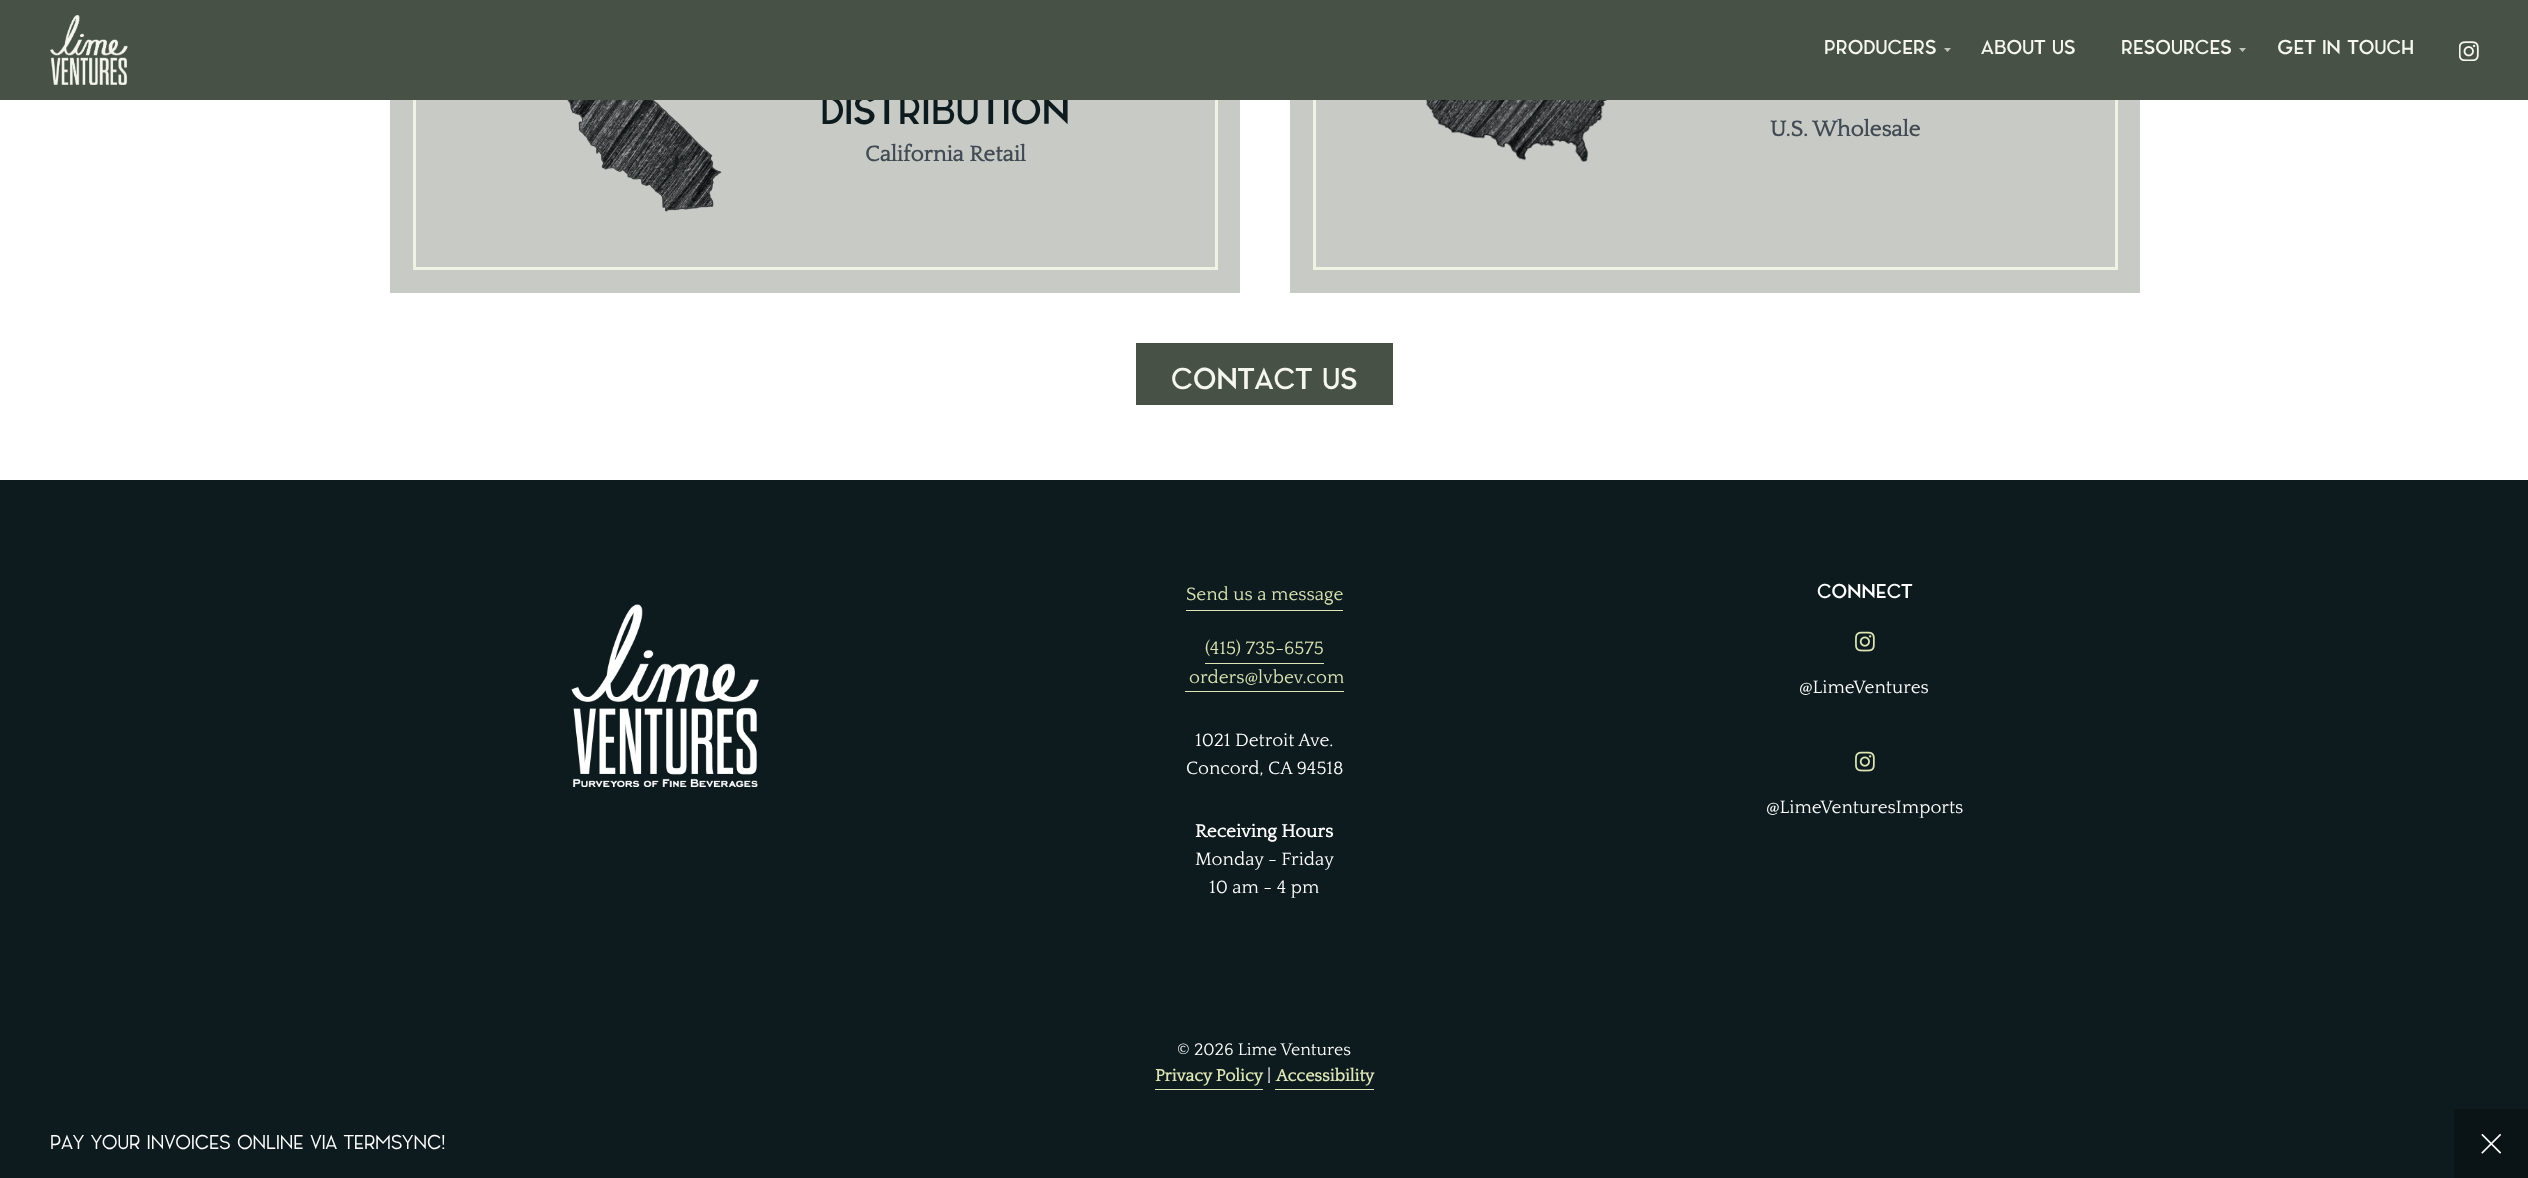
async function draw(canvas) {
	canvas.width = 2528;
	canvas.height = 1178;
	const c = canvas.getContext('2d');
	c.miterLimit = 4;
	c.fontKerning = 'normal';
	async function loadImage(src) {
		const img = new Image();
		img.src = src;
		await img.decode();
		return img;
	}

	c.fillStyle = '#fff';
	c.fillRect(0, 0, 2528, 1178);
	c.fillStyle = '#c7cac5';
	c.fillRect(390, 100, 850, 193);
	c.drawImage(await loadImage('img3.png'), 567, 100, 155, 112);
	c.strokeStyle = '#f0f3e4';
	c.lineWidth = 3;
	c.strokeRect(414.5, -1.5, 802, 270);
	c.font = '500 40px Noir';
	c.fillStyle = '#0d1b1e';
	c.fillText('DISTRIBUTION', 820, 124);
	c.fillStyle = '#c7cac5';
	c.fillRect(1290, 100, 850, 193);
	c.drawImage(await loadImage('img4.png'), 1425, 100, 183, 62);
	c.strokeRect(1314.5, -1.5, 802, 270);
	c.fillStyle = '#475145';
	c.fillRect(0, 0, 2528, 100);
	c.drawImage(await loadImage('img1.png'), 50, 15, 78, 70);
	c.font = '500 20px Noir';
	c.fillStyle = '#f5f6ef';
	c.fillText('PRODUCERS', 1824, 54);
	c.fillStyle = '#c1c5bc';
	c.beginPath();
	c.moveTo(1944, 48);
	c.lineTo(1951, 48);
	c.lineTo(1947.5, 52);
	c.closePath();
	c.fill();
	c.fillStyle = '#f5f6ef';
	c.fillText('ABOUT US', 1981, 54);
	c.fillText('RESOURCES', 2121, 54);
	c.fillStyle = '#c1c5bc';
	c.beginPath();
	c.moveTo(2239, 48);
	c.lineTo(2246, 48);
	c.lineTo(2242.5, 52);
	c.closePath();
	c.fill();
	c.fillStyle = '#f5f6ef';
	c.fillText('GET IN TOUCH', 2277, 54);
	c.drawImage(await loadImage('img2.png'), 2459, 41, 20, 20);
	c.font = 'bold 22.5px Quattrocento';
	c.fillStyle = '#424b54';
	c.fillText('California Retail', 865, 161);
	c.fillText('U.S. Wholesale', 1770, 136);
	c.fillStyle = '#475145';
	c.fillRect(1136, 343, 257, 62);
	c.font = '500 30px Noir';
	c.fillStyle = '#f5f6ef';
	c.fillText('CONTACT US', 1171, 389);
	c.fillStyle = '#0d1b1e';
	c.fillRect(0, 480, 2528, 629);
	c.drawImage(await loadImage('img5.png'), 571, 604, 188, 183);
	c.fillStyle = '#dde5b6';
	c.fillRect(1186, 610, 157, 1);
	c.font = '18.75px Quattrocento';
	c.fillText('Send us a message', 1186, 600);
	c.fillRect(1205, 663, 119, 1);
	c.fillText('(415) 735-6575', 1205, 654);
	c.fillRect(1185, 691, 159, 1);
	c.fillText('orders@lvbev.com', 1189, 683);
	c.fillStyle = '#fff';
	c.fillText('1021 Detroit Ave.', 1195, 746);
	c.fillText('Concord, CA 94518', 1186, 774);
	c.font = 'bold 18.75px Quattrocento';
	c.fillText('Receiving Hours', 1195, 837);
	c.font = '18.75px Quattrocento';
	c.fillText('Monday - Friday', 1195, 865);
	c.fillText('10 am - 4 pm', 1209, 893);
	c.font = '500 20px Noir';
	c.fillText('CONNECT', 1817, 598);
	c.drawImage(await loadImage('img6.png'), 1855, 631, 20, 21);
	c.font = '18.75px Quattrocento';
	c.fillText('@LimeVentures', 1799, 693);
	c.drawImage(await loadImage('img6.png'), 1855, 751, 20, 21);
	c.fillText('@LimeVenturesImports', 1766, 813);
	c.font = '17.5px Quattrocento';
	c.fillText('© 2026 Lime Ventures', 1177, 1055);
	c.fillStyle = '#dde5b6';
	c.fillRect(1155, 1089, 108, 1);
	c.font = 'bold 17.5px Quattrocento';
	c.fillText('Privacy Policy', 1155, 1081);
	c.font = '17.5px Quattrocento';
	c.fillStyle = '#fff';
	c.fillText('|', 1267, 1081);
	c.fillStyle = '#dde5b6';
	c.fillRect(1275, 1089, 99, 1);
	c.font = 'bold 17.5px Quattrocento';
	c.fillText('Accessibility', 1276, 1081);
	c.fillStyle = '#0d1b1e';
	c.fillRect(0, 1109, 2454, 69);
	c.font = '20px Noir';
	c.fillStyle = '#fff';
	c.fillText('PAY YOUR INVOICES ONLINE VIA TERMSYNC!', 50, 1149);
	c.fillStyle = '#0a1417';
	c.fillRect(2454, 1109, 74, 69);
	c.drawImage(await loadImage('img7.png'), 2481, 1134, 20, 20);
}

draw(document.querySelector('canvas'));
